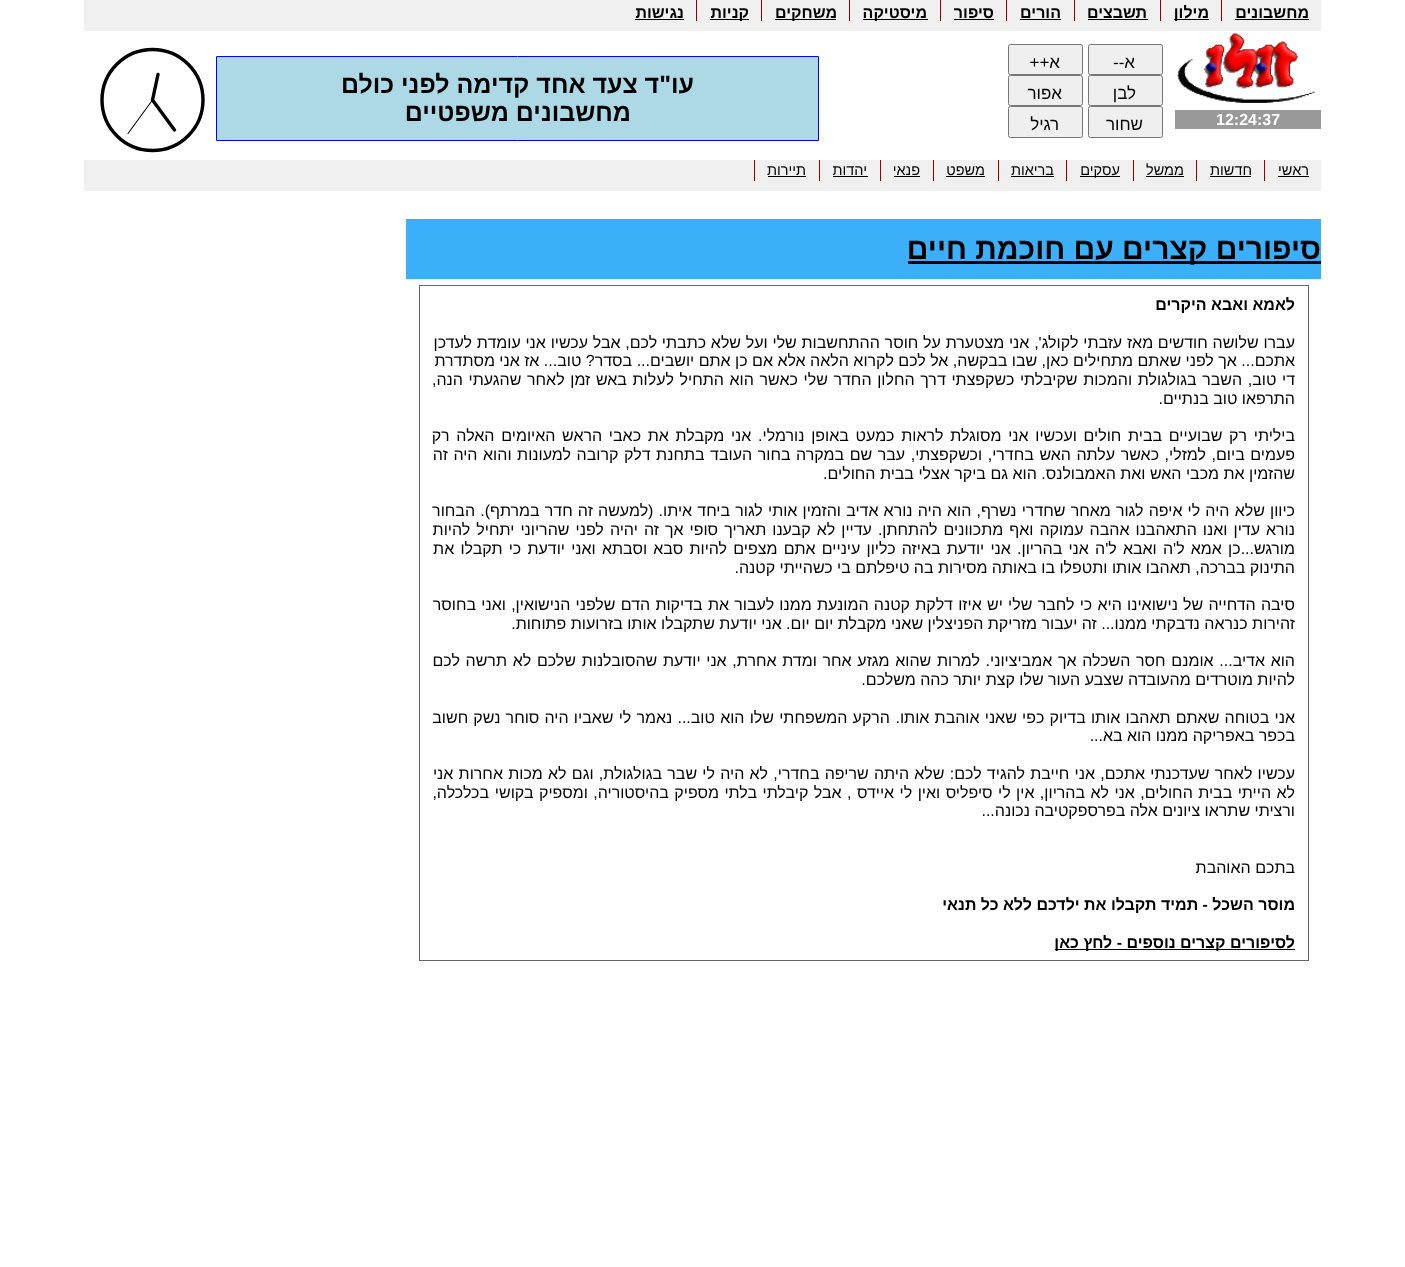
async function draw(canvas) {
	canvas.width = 1405;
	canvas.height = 1267;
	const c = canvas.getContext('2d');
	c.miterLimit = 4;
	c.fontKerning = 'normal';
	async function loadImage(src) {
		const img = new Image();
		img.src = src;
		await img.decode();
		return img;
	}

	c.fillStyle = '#fff';
	c.fillRect(0, 0, 1405, 1267);
	c.fillStyle = '#f0f0f0';
	c.fillRect(84, 0, 1237, 31);
	c.fillStyle = '#900';
	c.fillRect(1221, 0, 1, 21);
	c.direction = 'rtl';
	c.font = 'bold 16px Liberation Sans';
	c.fillStyle = '#000';
	c.fillText('מחשבונים', 1309, 18);
	for (const [x, y, w, h, color] of [
		[1235, 19, 74, 1, '#000'],
		[1160, 0, 1, 21, '#900'],
		[1174, 19, 35, 1, '#000'],
	]) {
		c.fillStyle = color;
		c.fillRect(x, y, w, h);
	}
	c.fillText('מילון', 1209, 18);
	c.fillStyle = '#900';
	c.fillRect(1074, 0, 1, 21);
	c.fillStyle = '#000';
	c.fillText('תשבצים', 1147, 18);
	c.fillRect(1088, 19, 60, 1);
	c.fillStyle = '#900';
	c.fillRect(1006, 0, 1, 21);
	c.fillStyle = '#000';
	c.fillText('הורים', 1061, 18);
	c.fillRect(1020, 19, 41, 1);
	c.fillStyle = '#900';
	c.fillRect(940, 0, 1, 21);
	c.fillStyle = '#000';
	c.fillText('סיפור', 994, 18);
	for (const [x, y, w, h, color] of [
		[954, 19, 40, 1, '#000'],
		[849, 0, 1, 21, '#900'],
		[863, 19, 65, 1, '#000'],
	]) {
		c.fillStyle = color;
		c.fillRect(x, y, w, h);
	}
	c.fillText('מיסטיקה', 927, 18);
	c.fillStyle = '#900';
	c.fillRect(761, 0, 1, 21);
	c.fillStyle = '#000';
	c.fillRect(775, 19, 61, 1);
	c.fillText('משחקים', 837, 18);
	c.fillStyle = '#900';
	c.fillRect(696, 0, 1, 21);
	c.fillStyle = '#000';
	c.fillRect(710, 19, 39, 1);
	c.fillText('קניות', 749, 18);
	c.fillText('נגישות', 684, 18);
	c.fillRect(635, 19, 49, 1);
	c.drawImage(await loadImage('img1.png'), 1177, 33, 138, 70);
	c.fillStyle = '#999';
	c.fillRect(1175, 110, 146, 19);
	c.direction = 'ltr';
	c.fillStyle = '#fff';
	c.fillText('12:24:37', 1216, 125);
	c.fillStyle = '#efefef';
	c.beginPath();
	c.roundRect(1088.5, 44.5, 74, 30, 2);
	c.fill();
	c.strokeStyle = '#767676';
	c.stroke();
	c.direction = 'rtl';
	c.font = '17px Liberation Sans';
	c.fillStyle = '#000';
	c.fillText('א--', 1135, 68);
	c.fillStyle = '#efefef';
	c.beginPath();
	c.roundRect(1008.5, 44.5, 74, 30, 2);
	c.fill();
	c.stroke();
	c.fillStyle = '#000';
	c.fillText('א++', 1060, 68);
	c.fillStyle = '#efefef';
	c.beginPath();
	c.roundRect(1088.5, 75.5, 74, 30, 2);
	c.fill();
	c.stroke();
	c.fillStyle = '#000';
	c.fillText('לבן', 1136, 99);
	c.fillStyle = '#efefef';
	c.beginPath();
	c.roundRect(1008.5, 75.5, 74, 30, 2);
	c.fill();
	c.stroke();
	c.fillStyle = '#000';
	c.fillText('אפור', 1062, 99);
	c.fillStyle = '#efefef';
	c.beginPath();
	c.roundRect(1088.5, 106.5, 74, 31, 2);
	c.fill();
	c.stroke();
	c.fillStyle = '#000';
	c.fillText('שחור', 1143, 130);
	c.fillStyle = '#efefef';
	c.beginPath();
	c.roundRect(1008.5, 106.5, 74, 31, 2);
	c.fill();
	c.stroke();
	c.fillStyle = '#000';
	c.fillText('רגיל', 1059, 130);
	c.fillStyle = '#add8e6';
	c.beginPath();
	c.rect(216.5, 56.5, 602, 84);
	c.fill();
	c.strokeStyle = '#00f';
	c.stroke();
	c.font = 'bold 25px Liberation Sans';
	c.fillStyle = '#000';
	c.fillText('עו"ד צעד אחד קדימה לפני כולם', 694, 93);
	c.fillText('מחשבונים משפטיים', 631, 121);
	c.beginPath();
	c.arc(152.5, 100, 50.5, 0, 2 * Math.PI);
	c.strokeStyle = '#000';
	c.lineWidth = 3.4;
	c.stroke();
	c.beginPath();
	c.moveTo(152.5, 100);
	c.lineTo(158, 74.5);
	c.moveTo(152.5, 100);
	c.lineTo(174.5, 130);
	c.lineCap = 'round';
	c.stroke();
	c.beginPath();
	c.moveTo(152.5, 100);
	c.lineTo(128, 133.5);
	c.lineWidth = 1.1;
	c.stroke();
	c.fillStyle = '#f0f0f0';
	c.fillRect(84, 160, 1237, 31);
	c.fillStyle = '#900';
	c.fillRect(1264, 160, 1, 21);
	c.font = '14.5px Liberation Sans';
	c.fillStyle = '#000';
	c.fillText('ראשי', 1309, 175);
	c.fillRect(1278, 176, 31, 1);
	c.fillStyle = '#900';
	c.fillRect(1196, 160, 1, 21);
	c.fillStyle = '#000';
	c.fillText('חדשות', 1252, 175);
	c.fillRect(1210, 176, 41, 1);
	c.fillStyle = '#900';
	c.fillRect(1133, 160, 1, 21);
	c.fillStyle = '#000';
	c.fillText('ממשל', 1184, 175);
	for (const [x, y, w, h, color] of [
		[1146, 176, 38, 1, '#000'],
		[1066, 160, 1, 21, '#900'],
		[1080, 176, 40, 1, '#000'],
	]) {
		c.fillStyle = color;
		c.fillRect(x, y, w, h);
	}
	c.fillText('עסקים', 1120, 175);
	c.fillStyle = '#900';
	c.fillRect(998, 160, 1, 21);
	c.fillStyle = '#000';
	c.fillText('בריאות', 1054, 175);
	c.fillRect(1011, 176, 43, 1);
	c.fillStyle = '#900';
	c.fillRect(933, 160, 1, 21);
	c.fillStyle = '#000';
	c.fillText('משפט', 985, 175);
	c.fillRect(946, 176, 39, 1);
	c.fillStyle = '#900';
	c.fillRect(880, 160, 1, 21);
	c.fillStyle = '#000';
	c.fillText('פנאי', 920, 175);
	c.fillRect(894, 176, 26, 1);
	c.fillStyle = '#900';
	c.fillRect(819, 160, 1, 21);
	c.fillStyle = '#000';
	c.fillText('יהדות', 867, 175);
	c.fillRect(833, 176, 35, 1);
	c.fillStyle = '#900';
	c.fillRect(754, 160, 1, 21);
	c.fillStyle = '#000';
	c.fillText('תיירות', 806, 175);
	for (const [x, y, w, h, color] of [
		[768, 176, 38, 1, '#000'],
		[406, 219, 915, 60, '#3baff9'],
		[908, 261, 413, 3, '#000'],
	]) {
		c.fillStyle = color;
		c.fillRect(x, y, w, h);
	}
	c.font = 'bold 30px Liberation Sans';
	c.fillText('סיפורים קצרים עם חוכמת חיים', 1321, 259);
	c.strokeStyle = '#666';
	c.lineWidth = 1;
	c.strokeRect(419.5, 285.5, 889, 675);
	c.font = 'bold 16px Liberation Sans';
	c.fillText('לאמא ואבא היקרים', 1295, 310);
	c.wordSpacing = '0.3px';
	c.font = '16px Liberation Sans';
	c.fillText('עברו שלושה חודשים מאז עזבתי לקולג\', אני מצטערת על חוסר ההתחשבות שלי ועל שלא כתבתי לכם, אבל עכשיו אני עומדת לעדכן', 1295, 348);
	c.wordSpacing = '0px';
	c.fillText('אתכם... אך לפני שאתם מתחילים כאן, שבו בבקשה, אל לכם לקרוא הלאה אלא אם כן אתם יושבים... בסדר? טוב... אז אני מסתדרת', 1295, 366);
	c.wordSpacing = '1.2px';
	c.fillText('די טוב, השבר בגולגולת והמכות שקיבלתי כשקפצתי דרך החלון החדר שלי כאשר הוא התחיל לעלות באש זמן לאחר שהגעתי הנה,', 1295, 385);
	c.wordSpacing = '0px';
	c.fillText('התרפאו טוב בנתיים.', 1295, 404);
	c.wordSpacing = '2.25px';
	c.fillText('ביליתי רק שבועיים בבית חולים ועכשיו אני מסוגלת לראות כמעט באופן נורמלי. אני מקבלת את כאבי הראש האיומים האלה רק', 1295, 441);
	c.wordSpacing = '1.1px';
	c.fillText('פעמים ביום, למזלי, כאשר עלתה האש בחדרי, וכשקפצתי, עבר שם במקרה בחור העובד בתחנת דלק קרובה למעונות והוא היה זה', 1295, 460);
	c.wordSpacing = '0px';
	c.fillText('שהזמין את מכבי האש ואת האמבולנס. הוא גם ביקר אצלי בבית החולים.', 1295, 479);
	c.wordSpacing = '0.7px';
	c.fillText('כיוון שלא היה לי איפה לגור מאחר שחדרי נשרף, הוא היה נורא אדיב והזמין אותי לגור ביחד איתו. (למעשה זה חדר במרתף). הבחור', 1295, 516);
	c.wordSpacing = '1.6px';
	c.fillText('נורא עדין ואנו התאהבנו אהבה עמוקה ואף מתכוונים להתחתן. עדיין לא קבענו תאריך סופי אך זה יהיה לפני שהריוני יתחיל להיות', 1295, 535);
	c.wordSpacing = '1.75px';
	c.fillText('מורגש...כן אמא ל\'ה ואבא ל\'ה אני בהריון. אני יודעת באיזה כליון עיניים אתם מצפים להיות סבא וסבתא ואני יודעת כי תקבלו את', 1295, 554);
	c.wordSpacing = '0px';
	c.fillText('התינוק בברכה, תאהבו אותו ותטפלו בו באותה מסירות בה טיפלתם בי כשהייתי קטנה.', 1295, 573);
	c.wordSpacing = '0.8px';
	c.fillText('סיבה הדחייה של נישואינו היא כי לחבר שלי יש איזו דלקת קטנה המונעת ממנו לעבור את בדיקות הדם שלפני הנישואין, ואני בחוסר', 1295, 610);
	c.wordSpacing = '0px';
	c.fillText('זהירות כנראה נדבקתי ממנו... זה יעבור מזריקת הפניצלין שאני מקבלת יום יום. אני יודעת שתקבלו אותו בזרועות פתוחות.', 1295, 629);
	c.wordSpacing = '1.25px';
	c.fillText('הוא אדיב... אומנם חסר השכלה אך אמביציוני. למרות שהוא מגזע אחר ומדת אחרת, אני יודעת שהסובלנות שלכם לא תרשה לכם', 1295, 666);
	c.wordSpacing = '0px';
	c.fillText('להיות מוטרדים מהעובדה שצבע העור שלו קצת יותר כהה משלכם.', 1295, 685);
	c.wordSpacing = '0.75px';
	c.fillText('אני בטוחה שאתם תאהבו אותו בדיוק כפי שאני אוהבת אותו.', 1295, 723);
	c.fillText('הרקע המשפחתי שלו הוא טוב... נאמר לי שאביו היה סוחר נשק חשוב', 890, 723);
	c.wordSpacing = '0px';
	c.fillText('בכפר באפריקה ממנו הוא בא...', 1295, 741);
	c.wordSpacing = '0.8px';
	c.fillText('עכשיו לאחר שעדכנתי אתכם, אני חייבת להגיד לכם: שלא היתה שריפה בחדרי, לא היה לי שבר בגולגולת, וגם לא מכות אחרות אני', 1295, 779);
	c.wordSpacing = '1px';
	c.fillText('לא הייתי בבית החולים, אני לא בהריון, אין לי סיפליס ואין לי איידס , אבל קיבלתי בלתי מספיק בהיסטוריה, ומספיק בקושי', 1295, 798);
	c.wordSpacing = '0px';
	for (const [text, x, y] of [
		['בכלכלה,', 489, 798],
		['ורציתי שתראו ציונים אלה בפרספקטיבה נכונה...', 1295, 816],
		['בתכם האוהבת', 1295, 873],
	]) {
		c.fillText(text, x, y);
	}
	c.font = 'bold 16px Liberation Sans';
	c.fillText('מוסר השכל - תמיד תקבלו את ילדכם ללא כל תנאי', 1295, 910);
	c.fillRect(1055, 949, 240, 1);
	c.fillText('לסיפורים קצרים נוספים - לחץ כאן', 1295, 948);
}

draw(document.querySelector('canvas'));
